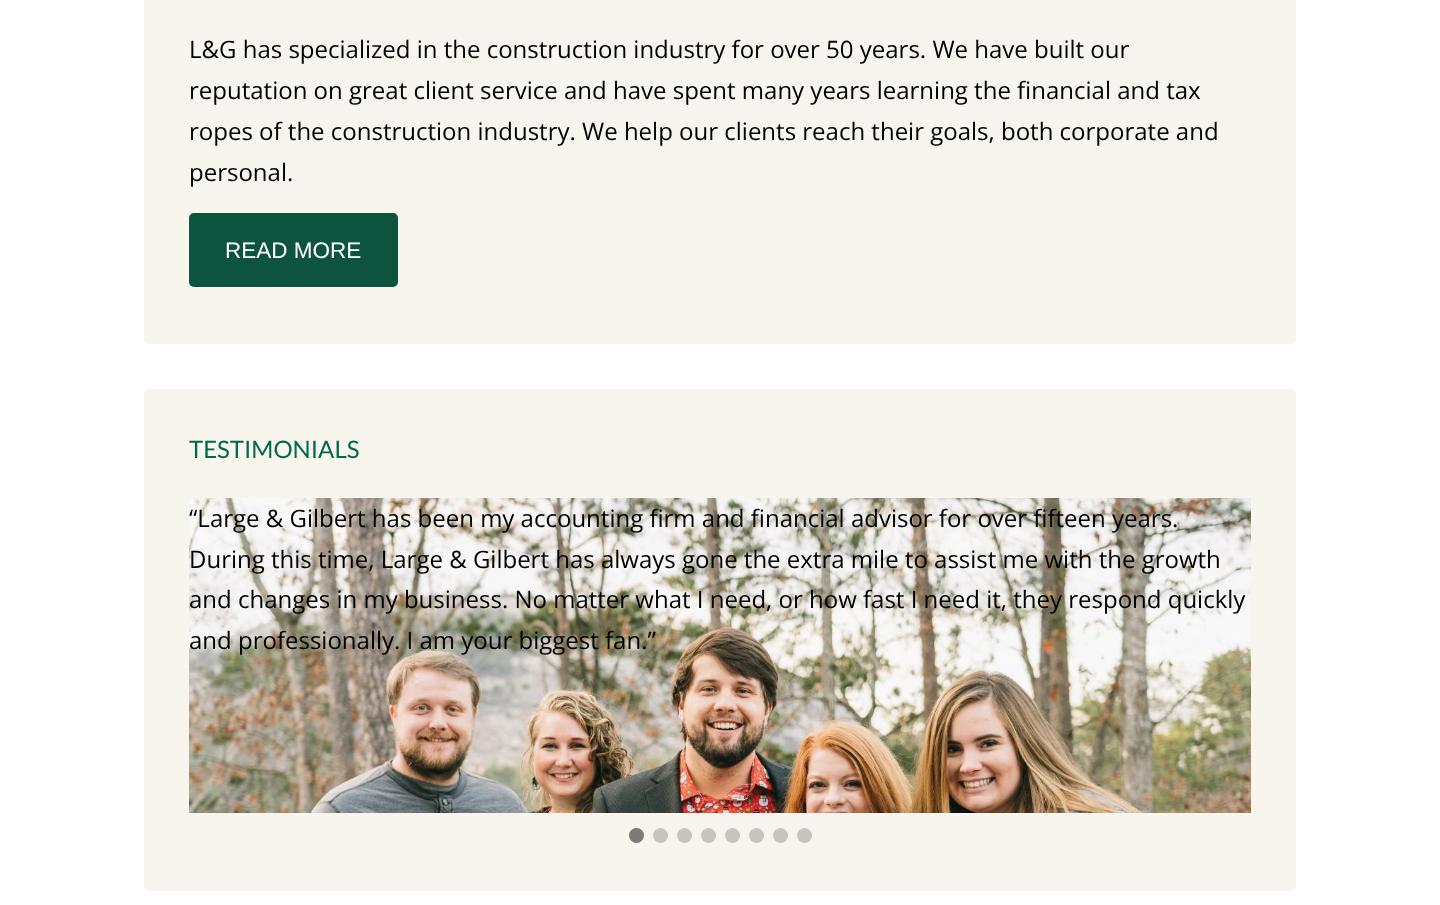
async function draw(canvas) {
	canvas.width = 1440;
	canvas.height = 905;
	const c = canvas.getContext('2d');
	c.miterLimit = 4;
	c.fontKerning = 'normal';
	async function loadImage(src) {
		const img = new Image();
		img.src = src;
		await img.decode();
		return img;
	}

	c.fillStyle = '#fff';
	c.fillRect(0, 0, 1440, 905);
	c.fillStyle = '#f7f5ed';
	c.beginPath();
	c.roundRect(144, -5, 1152, 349, 5);
	c.fill();
	c.font = '24px Open Sans';
	c.fillStyle = '#000';
	for (const [text, x, y] of [
		['L&G has specialized in the construction industry for over 50 years. We have built our', 189, 58],
		['reputation on great client service and have spent many years learning the financial and tax', 189, 99],
		['ropes of the construction industry. We help our clients reach their goals, both corporate and', 189, 140],
		['personal.', 189, 181],
	]) {
		c.fillText(text, x, y);
	}
	c.fillStyle = '#0c543d';
	c.beginPath();
	c.roundRect(189, 213, 209, 74, 5);
	c.fill();
	c.font = '22.5px Liberation Sans';
	c.fillStyle = '#fff';
	c.fillText('READ MORE', 225, 258);
	c.fillStyle = '#f7f5ed';
	c.beginPath();
	c.roundRect(144, 389, 1152, 502, 5);
	c.fill();
	c.font = '24px Lato';
	c.fillStyle = '#036948';
	c.fillText('TESTIMONIALS', 189, 458);
	c.drawImage(await loadImage('img1.png'), 189, 498, 1062, 315);
	c.font = '24px Open Sans';
	c.fillStyle = '#000';
	for (const [text, x, y] of [
		['“Large & Gilbert has been my accounting firm and financial advisor for over fifteen years.', 189, 527],
		['During this time, Large & Gilbert has always gone the extra mile to assist me with the growth', 189, 568],
		['and changes in my business. No matter what I need, or how fast I need it, they respond quickly', 189, 608],
		['and professionally. I am your biggest fan.”', 189, 649],
	]) {
		c.fillText(text, x, y);
	}
	c.fillStyle = '#7c7b77';
	c.beginPath();
	c.arc(636.5, 835.5, 7.5, 0, 2 * Math.PI);
	c.fill();
	c.fillStyle = '#c6c4be';
	c.beginPath();
	c.arc(660.5, 835.5, 7.5, 0, 2 * Math.PI);
	c.fill();
	c.beginPath();
	c.arc(684.5, 835.5, 7.5, 0, 2 * Math.PI);
	c.fill();
	c.beginPath();
	c.arc(708.5, 835.5, 7.5, 0, 2 * Math.PI);
	c.fill();
	c.beginPath();
	c.arc(732.5, 835.5, 7.5, 0, 2 * Math.PI);
	c.fill();
	c.beginPath();
	c.arc(756.5, 835.5, 7.5, 0, 2 * Math.PI);
	c.fill();
	c.beginPath();
	c.arc(780.5, 835.5, 7.5, 0, 2 * Math.PI);
	c.fill();
	c.beginPath();
	c.arc(804.5, 835.5, 7.5, 0, 2 * Math.PI);
	c.fill();
}

draw(document.querySelector('canvas'));
